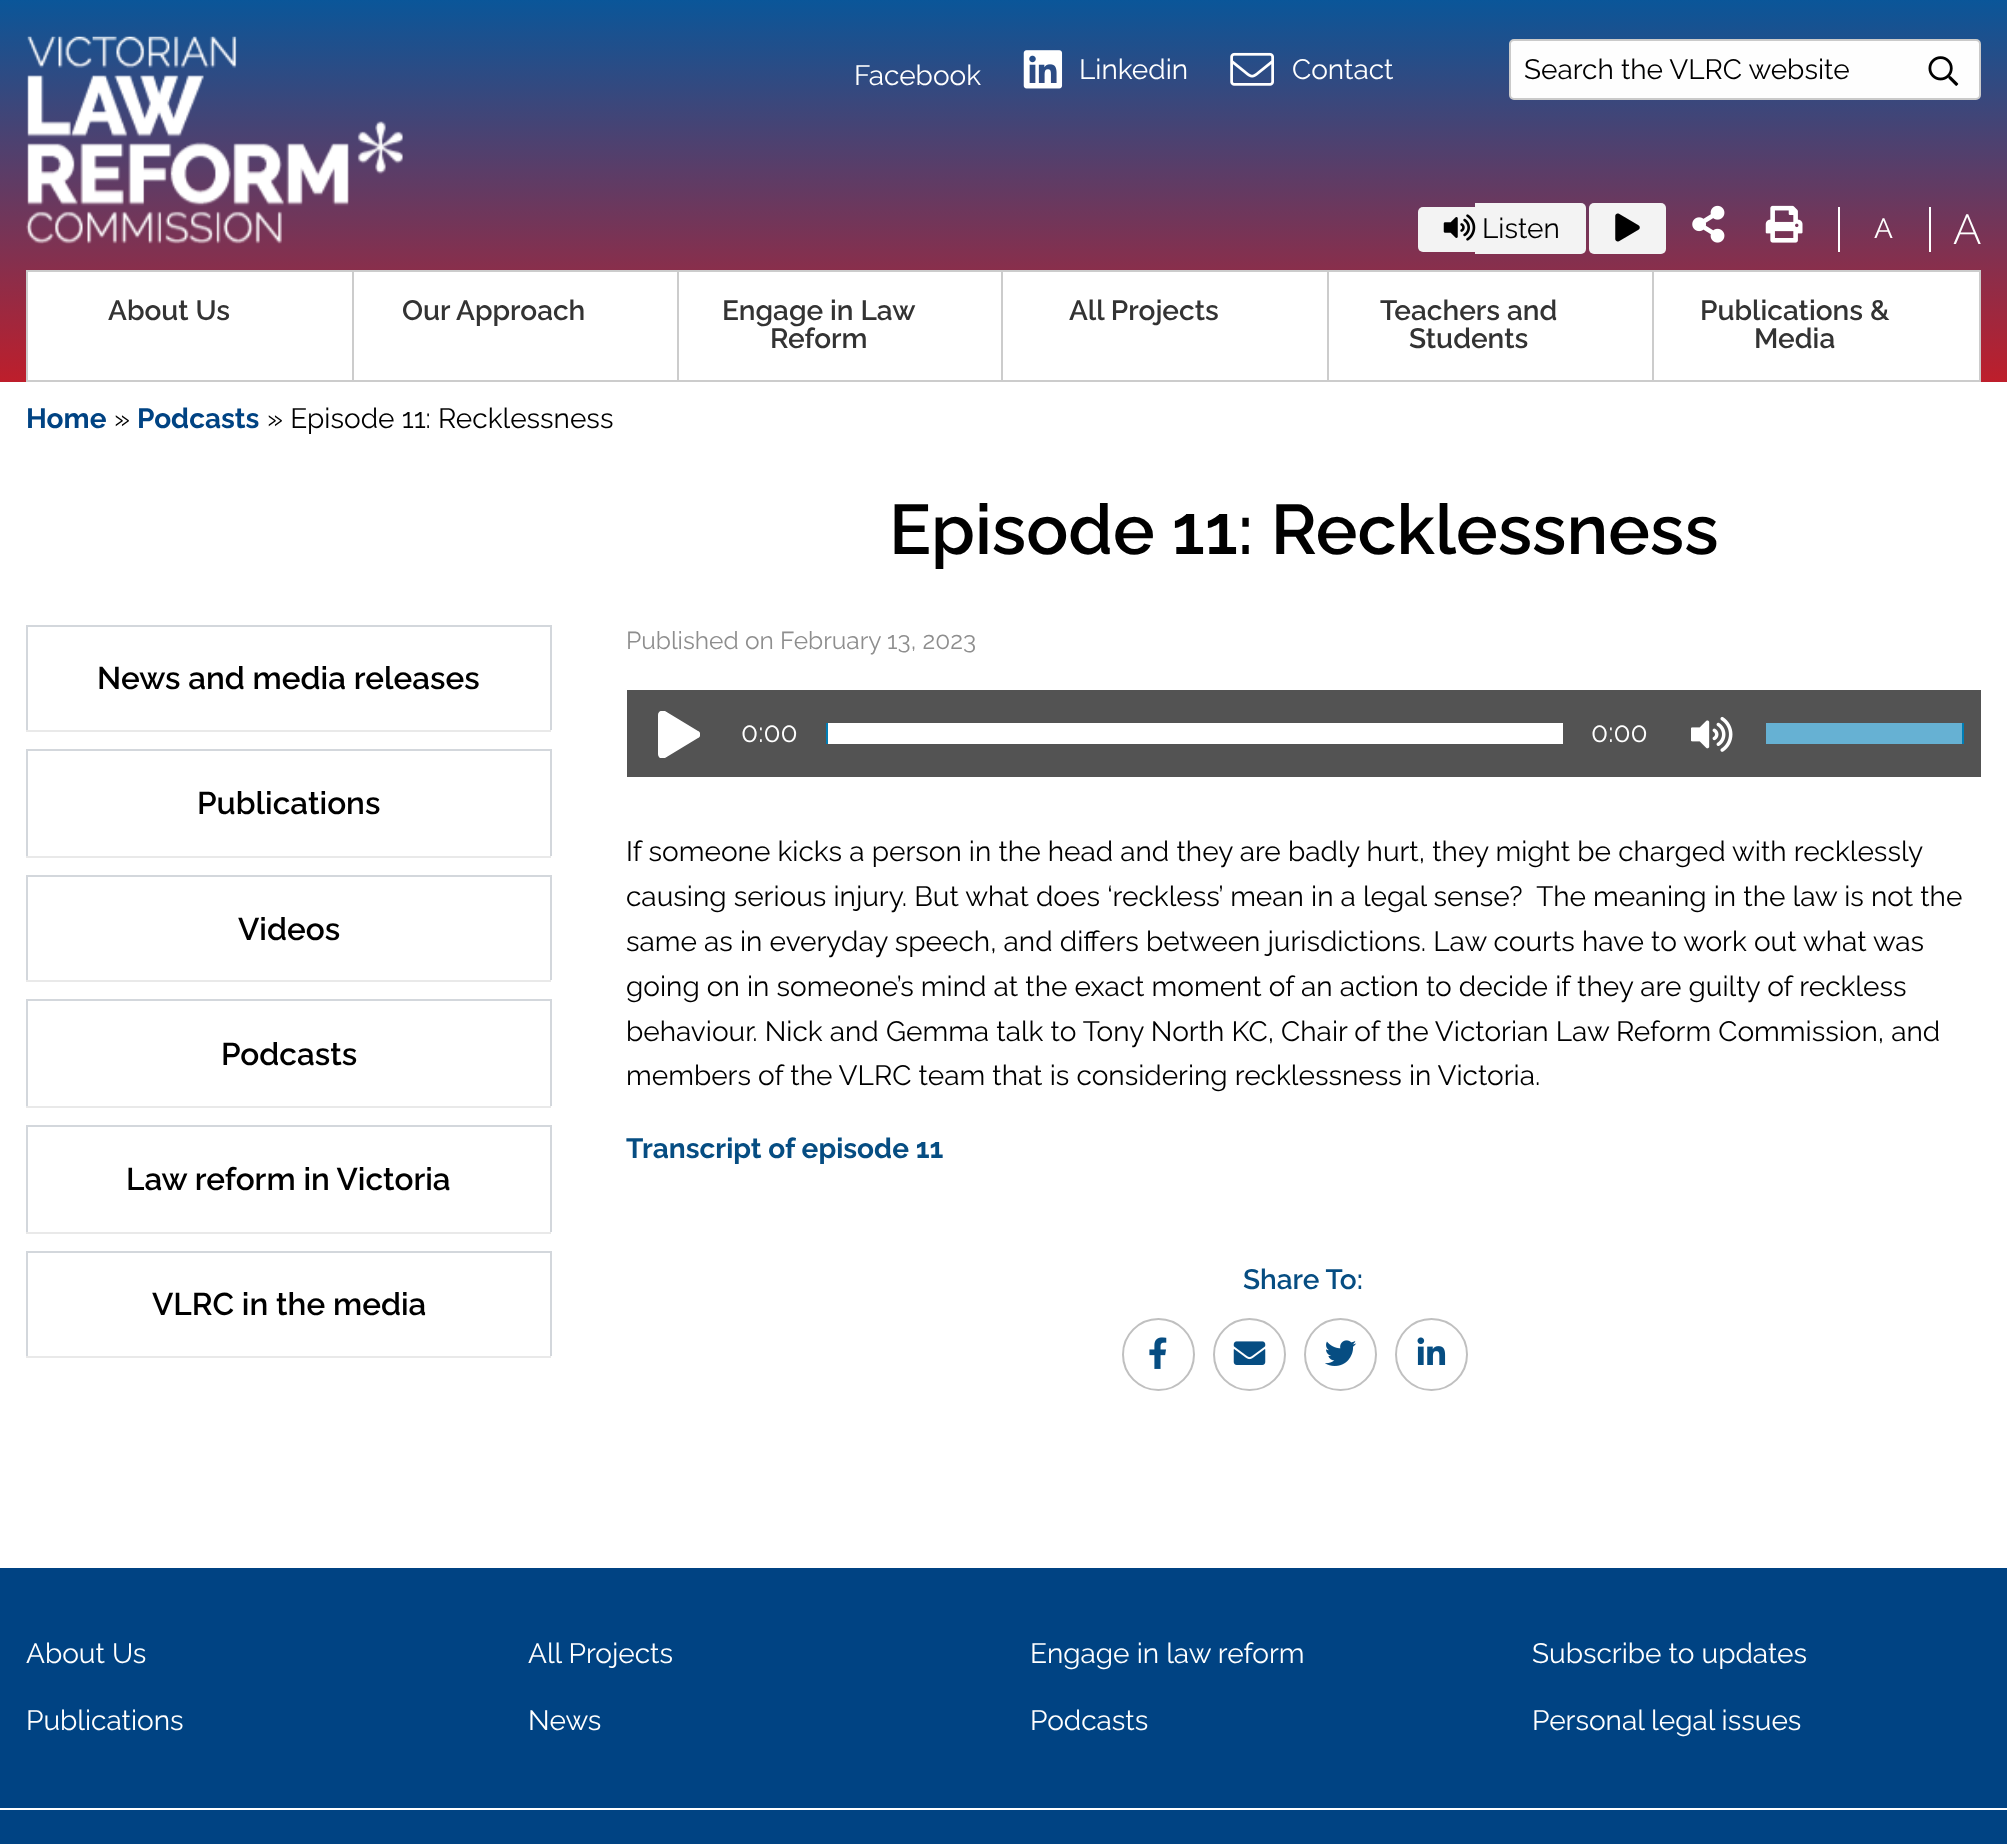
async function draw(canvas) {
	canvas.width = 2007;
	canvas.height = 1844;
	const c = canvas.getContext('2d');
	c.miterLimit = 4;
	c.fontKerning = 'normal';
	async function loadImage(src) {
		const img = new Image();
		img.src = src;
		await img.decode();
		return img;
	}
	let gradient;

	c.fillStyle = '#fff';
	c.fillRect(0, 0, 2007, 1844);
	gradient = c.createLinearGradient(1004, 0, 1004, 382);
	gradient.addColorStop(0, '#0a5699');
	gradient.addColorStop(1, '#be1e2b');
	c.fillStyle = gradient;
	c.fillRect(0, 0, 2007, 382);
	c.font = '28px Raleway';
	c.fillStyle = '#fff';
	c.fillText('Facebook', 854, 85);
	c.drawImage(await loadImage('img1.png'), 1023, 50, 40, 39);
	c.fillText('Linkedin', 1079, 79);
	c.drawImage(await loadImage('img2.png'), 1230, 52, 44, 34);
	c.fillText('Contact', 1292, 79);
	c.fillStyle = '#fefefe';
	c.beginPath();
	c.roundRect(1510, 40, 470, 59, 4);
	c.fill();
	c.strokeStyle = '#cacaca';
	c.lineWidth = 2;
	c.stroke();
	c.fillStyle = '#000';
	c.fillText('Search the VLRC website', 1524, 79);
	c.drawImage(await loadImage('img3.png'), 1928, 56, 31, 30);
	c.drawImage(await loadImage('img4.png'), 26, 36, 377, 208);
	c.fillStyle = '#f3f3f3';
	c.beginPath();
	c.roundRect(1418, 207, 57, 45, [5, 0, 0, 5]);
	c.fill();
	c.fillRect(1475, 203, 7, 51);
	c.beginPath();
	c.roundRect(1482, 203, 104, 51, [0, 5, 5, 0]);
	c.fill();
	c.drawImage(await loadImage('img5.png'), 1443, 214, 33, 27);
	c.fillStyle = '#000';
	c.fillText('Listen', 1482, 238);
	c.fillStyle = '#f3f3f3';
	c.beginPath();
	c.roundRect(1589, 203, 77, 51, 5);
	c.fill();
	c.drawImage(await loadImage('img6.png'), 1615, 213, 25, 29);
	c.drawImage(await loadImage('img7.png'), 1692, 205, 33, 38);
	c.drawImage(await loadImage('img8.png'), 1765, 205, 38, 38);
	c.fillStyle = '#fff';
	c.fillRect(1929, 207, 2, 45);
	c.fillRect(1838, 207, 2, 45);
	c.fillText('A', 1874, 238);
	c.font = '300 42px Raleway';
	c.fillText('A', 1953, 244);
	c.beginPath();
	c.rect(27, 271, 1953, 110);
	c.fill();
	c.strokeStyle = '#ccc';
	c.stroke();
	c.fillStyle = '#ccc';
	c.fillRect(352, 271, 2, 109);
	c.font = '600 28px Raleway';
	c.fillStyle = '#333';
	c.fillText('About Us', 108, 320);
	c.fillStyle = '#ccc';
	c.fillRect(677, 271, 2, 109);
	c.fillStyle = '#333';
	c.fillText('Our Approach', 402, 320);
	c.fillStyle = '#ccc';
	c.fillRect(1001, 271, 2, 109);
	c.fillStyle = '#333';
	c.fillText('Engage in Law', 722, 320);
	c.fillText('Reform', 770, 348);
	c.fillStyle = '#ccc';
	c.fillRect(1327, 271, 2, 109);
	c.fillStyle = '#333';
	c.fillText('All Projects', 1069, 320);
	c.fillStyle = '#ccc';
	c.fillRect(1652, 271, 2, 109);
	c.fillStyle = '#333';
	for (const [text, x, y] of [
		['Teachers and', 1380, 320],
		['Students', 1409, 348],
		['Publications &', 1700, 320],
		['Media', 1754, 348],
	]) {
		c.fillText(text, x, y);
	}
	c.font = 'bold 28px Raleway';
	c.fillStyle = '#004383';
	c.fillText('Home', 26, 428);
	c.font = '28px Raleway';
	c.fillStyle = '#000';
	c.fillText('»', 114, 428);
	c.font = 'bold 28px Raleway';
	c.fillStyle = '#004383';
	c.fillText('Podcasts', 137, 428);
	c.font = '28px Raleway';
	c.fillStyle = '#000';
	c.fillText('» Episode 11: Recklessness', 267, 428);
	for (const [x, y, w, h, color] of [
		[26, 730, 525, 2, '#e9e9e9'],
		[26, 625, 525, 2, '#d3d7dc'],
		[550, 625, 2, 105, '#d3d7dc'],
		[26, 625, 2, 105, '#d3d7dc'],
	]) {
		c.fillStyle = color;
		c.fillRect(x, y, w, h);
	}
	c.font = '600 31.5px Raleway';
	c.fillStyle = '#000';
	c.fillText('News and media releases', 97, 689);
	for (const [x, y, w, h, color] of [
		[26, 856, 525, 2, '#e9e9e9'],
		[26, 749, 525, 2, '#d3d7dc'],
		[550, 749, 2, 107, '#d3d7dc'],
		[26, 749, 2, 107, '#d3d7dc'],
	]) {
		c.fillStyle = color;
		c.fillRect(x, y, w, h);
	}
	c.fillStyle = '#000';
	c.fillText('Publications', 197, 814);
	for (const [x, y, w, h, color] of [
		[26, 980, 525, 2, '#e9e9e9'],
		[26, 875, 525, 2, '#d3d7dc'],
		[550, 875, 2, 105, '#d3d7dc'],
		[26, 875, 2, 105, '#d3d7dc'],
	]) {
		c.fillStyle = color;
		c.fillRect(x, y, w, h);
	}
	c.fillStyle = '#000';
	c.fillText('Videos', 238, 940);
	for (const [x, y, w, h, color] of [
		[26, 1106, 525, 2, '#e9e9e9'],
		[26, 999, 525, 2, '#d3d7dc'],
		[550, 999, 2, 107, '#d3d7dc'],
		[26, 999, 2, 107, '#d3d7dc'],
	]) {
		c.fillStyle = color;
		c.fillRect(x, y, w, h);
	}
	c.fillStyle = '#000';
	c.fillText('Podcasts', 221, 1065);
	for (const [x, y, w, h, color] of [
		[26, 1232, 525, 2, '#e9e9e9'],
		[26, 1125, 525, 2, '#d3d7dc'],
		[550, 1125, 2, 107, '#d3d7dc'],
		[26, 1125, 2, 107, '#d3d7dc'],
	]) {
		c.fillStyle = color;
		c.fillRect(x, y, w, h);
	}
	c.fillStyle = '#000';
	c.fillText('Law reform in Victoria', 126, 1190);
	for (const [x, y, w, h, color] of [
		[26, 1356, 525, 2, '#e9e9e9'],
		[26, 1251, 525, 2, '#d3d7dc'],
		[550, 1251, 2, 105, '#d3d7dc'],
		[26, 1251, 2, 105, '#d3d7dc'],
	]) {
		c.fillStyle = color;
		c.fillRect(x, y, w, h);
	}
	c.fillStyle = '#000';
	c.fillText('VLRC in the media', 152, 1315);
	c.font = '600 70px Raleway';
	c.fillText('Episode 11: Recklessness', 889, 554);
	c.font = '24.5px Raleway';
	c.fillStyle = '#8e8e8e';
	c.fillText('Published on February 13, 2023', 626, 649);
	c.fillStyle = '#535353';
	c.fillRect(627, 690, 1354, 87);
	c.save();
	c.beginPath();
	c.rect(658, 711, 42, 47);
	c.clip();
	c.fillStyle = '#fff';
	c.beginPath();
	c.moveTo(698, 731);
	c.lineTo(665, 711);
	c.bezierCurveTo(662, 710, 658, 711, 658, 715);
	c.lineTo(658, 754);
	c.bezierCurveTo(658, 758, 662, 760, 665, 758);
	c.lineTo(698, 738);
	c.bezierCurveTo(701, 737, 701, 732, 698, 731);
	c.closePath();
	c.fill();
	c.restore();
	c.font = '28px Raleway';
	c.fillStyle = '#fff';
	c.fillText('0:00', 741, 742);
	c.fillRect(828, 723, 735, 21);
	c.fillStyle = '#007db5';
	c.fillRect(826, 723, 2, 21);
	c.fillStyle = '#fff';
	c.fillText('0:00', 1591, 742);
	c.drawImage(await loadImage('img9.png'), 1691, 716, 42, 36);
	c.fillStyle = '#66b1d3';
	c.fillRect(1766, 723, 196, 21);
	c.fillStyle = '#007db5';
	c.fillRect(1962, 723, 2, 21);
	c.fillStyle = '#000';
	for (const [text, x, y] of [
		['If someone kicks a person in the head and they are badly hurt, they might be charged with recklessly', 626, 861],
		['causing serious injury. But what does ‘reckless’ mean in a legal sense?  The meaning in the law is not the', 626, 906],
		['same as in everyday speech, and differs between jurisdictions. Law courts have to work out what was', 626, 951],
		['going on in someone’s mind at the exact moment of an action to decide if they are guilty of reckless', 626, 996],
		['behaviour. Nick and Gemma talk to Tony North KC, Chair of the Victorian Law Reform Commission, and', 626, 1041],
		['members of the VLRC team that is considering recklessness in Victoria.', 626, 1085],
	]) {
		c.fillText(text, x, y);
	}
	c.font = 'bold 28px Raleway';
	c.fillStyle = '#064d82';
	c.fillText('Transcript of episode 11', 626, 1158);
	c.font = '600 28px Raleway';
	c.fillText('Share To:', 1243, 1289);
	c.beginPath();
	c.arc(1158.5, 1354.5, 35.5, 0, 2 * Math.PI);
	c.strokeStyle = '#c0c0c0';
	c.stroke();
	c.drawImage(await loadImage('img10.png'), 1149, 1337, 18, 32);
	c.beginPath();
	c.arc(1249.5, 1354.5, 35.5, 0, 2 * Math.PI);
	c.stroke();
	c.drawImage(await loadImage('img11.png'), 1233, 1341, 33, 24);
	c.beginPath();
	c.arc(1340.5, 1354.5, 35.5, 0, 2 * Math.PI);
	c.stroke();
	c.drawImage(await loadImage('img12.png'), 1325, 1340, 32, 26);
	c.beginPath();
	c.arc(1431.5, 1354.5, 35.5, 0, 2 * Math.PI);
	c.stroke();
	c.drawImage(await loadImage('img13.png'), 1417, 1337, 29, 28);
	c.fillStyle = '#004383';
	c.fillRect(0, 1568, 2007, 276);
	c.font = '28px Raleway';
	c.fillStyle = '#fff';
	for (const [text, x, y] of [
		['About Us', 26, 1663],
		['All Projects', 528, 1663],
		['Engage in law reform', 1030, 1663],
		['Subscribe to updates', 1532, 1663],
		['Publications', 26, 1730],
		['News', 528, 1730],
		['Podcasts', 1030, 1730],
		['Personal legal issues', 1532, 1730],
	]) {
		c.fillText(text, x, y);
	}
	c.fillRect(0, 1808, 2007, 2);
}

draw(document.querySelector('canvas'));
